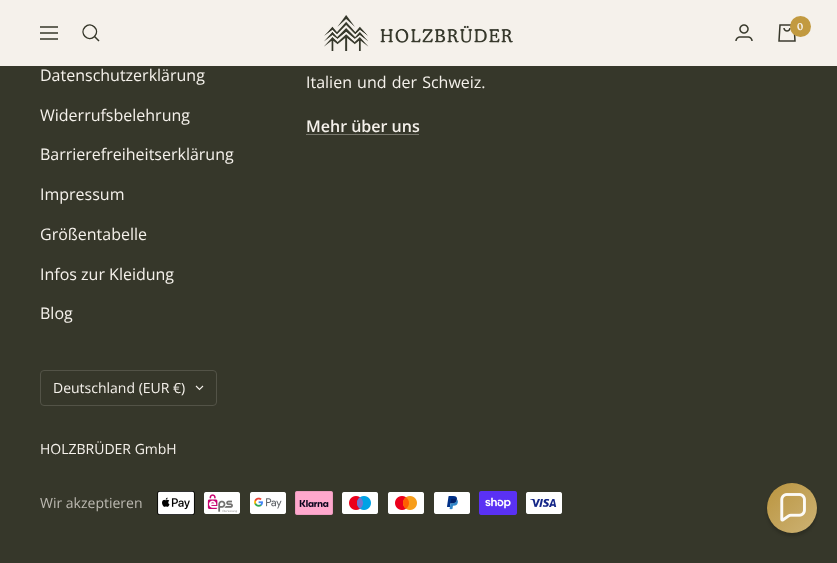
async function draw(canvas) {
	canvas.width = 837;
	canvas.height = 563;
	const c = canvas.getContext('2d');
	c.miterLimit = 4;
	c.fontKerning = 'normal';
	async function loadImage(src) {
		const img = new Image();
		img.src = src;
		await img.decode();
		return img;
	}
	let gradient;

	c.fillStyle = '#36372a';
	c.fillRect(0, 0, 837, 563);
	c.fillStyle = '#f5f1eb';
	c.fillRect(0, 0, 837, 66);
	c.beginPath();
	c.moveTo(40, 27);
	c.lineTo(58, 27);
	c.moveTo(40, 39);
	c.lineTo(58, 39);
	c.closePath();
	c.moveTo(40, 33);
	c.lineTo(58, 33);
	c.closePath();
	c.moveTo(94.5, 36.5);
	c.bezierCurveTo(100.5, 30, 91.5, 21, 85, 27);
	c.bezierCurveTo(79, 33.5, 88, 42.5, 94.5, 36.5);
	c.closePath();
	c.moveTo(94.5, 36.5);
	c.lineTo(99, 41);
	c.strokeStyle = '#36372a';
	c.lineWidth = 1.5;
	c.stroke();
	c.drawImage(await loadImage('img1.png'), 324, 15, 189, 36);
	c.drawImage(await loadImage('img2.png'), 735, 24, 18, 17);
	c.drawImage(await loadImage('img3.png'), 778, 24, 18, 18);
	c.fillStyle = '#c29a40';
	c.beginPath();
	c.arc(800.5, 26.5, 10.5, 0, 2 * Math.PI);
	c.fill();
	c.font = '11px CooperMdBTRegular';
	c.fillStyle = '#f5f1eb';
	c.fillText('0', 797, 30);
	c.font = '16px Open Sans';
	for (const [text, x, y] of [
		['Datenschutzerklärung', 40, 81],
		['Widerrufsbelehrung', 40, 121],
		['Barrierefreiheitserklärung', 40, 160],
		['Impressum', 40, 200],
		['Größentabelle', 40, 240],
		['Infos zur Kleidung', 40, 280],
		['Blog', 40, 319],
	]) {
		c.fillText(text, x, y);
	}
	c.wordSpacing = '1px';
	c.fillText('Italien und der Schweiz.', 306, 88);
	c.wordSpacing = '0px';
	c.font = '600 16px Open Sans';
	c.fillText('Mehr über uns', 306, 132);
	c.fillStyle = '#79786e';
	c.fillRect(306, 134, 113, 1);
	c.beginPath();
	c.roundRect(40.5, 370.5, 176, 35, 3.5);
	c.strokeStyle = '#535347';
	c.lineWidth = 1;
	c.stroke();
	c.font = '14px Open Sans';
	c.fillStyle = '#f5f1eb';
	c.fillText('Deutschland (EUR €)', 53, 393);
	c.beginPath();
	c.moveTo(196, 386);
	c.lineTo(199.5, 389.5);
	c.lineTo(203, 386);
	c.strokeStyle = '#f5f1eb';
	c.lineWidth = 1.1;
	c.stroke();
	c.fillText('HOLZBRÜDER GmbH', 40, 454);
	c.fillStyle = '#bcb9b1';
	c.fillText('Wir akzeptieren', 40, 508);
	c.drawImage(await loadImage('img4.png'), 157, 491, 38, 24);
	c.drawImage(await loadImage('img5.png'), 204, 492, 36, 22);
	c.drawImage(await loadImage('img6.png'), 250, 492, 36, 22);
	c.drawImage(await loadImage('img7.png'), 295, 491, 38, 24);
	c.drawImage(await loadImage('img8.png'), 342, 492, 36, 22);
	c.drawImage(await loadImage('img9.png'), 388, 492, 36, 22);
	c.drawImage(await loadImage('img10.png'), 434, 492, 36, 22);
	c.drawImage(await loadImage('img11.png'), 479, 491, 38, 24);
	c.drawImage(await loadImage('img12.png'), 526, 492, 36, 22);
	c.fillStyle = '#03030233';
	c.filter = 'blur(1.5px)';
	c.beginPath();
	c.roundRect(767, 486, 50, 50, 25);
	c.fill();
	c.filter = 'none';
	gradient = c.createLinearGradient(767, 483, 817, 533);
	gradient.addColorStop(0, '#bb953f');
	gradient.addColorStop(1, '#ccb275');
	c.fillStyle = gradient;
	c.beginPath();
	c.arc(792, 508, 25, 0, 2 * Math.PI);
	c.fill();
	c.drawImage(await loadImage('img13.png'), 780, 493, 26, 29);
}

draw(document.querySelector('canvas'));
